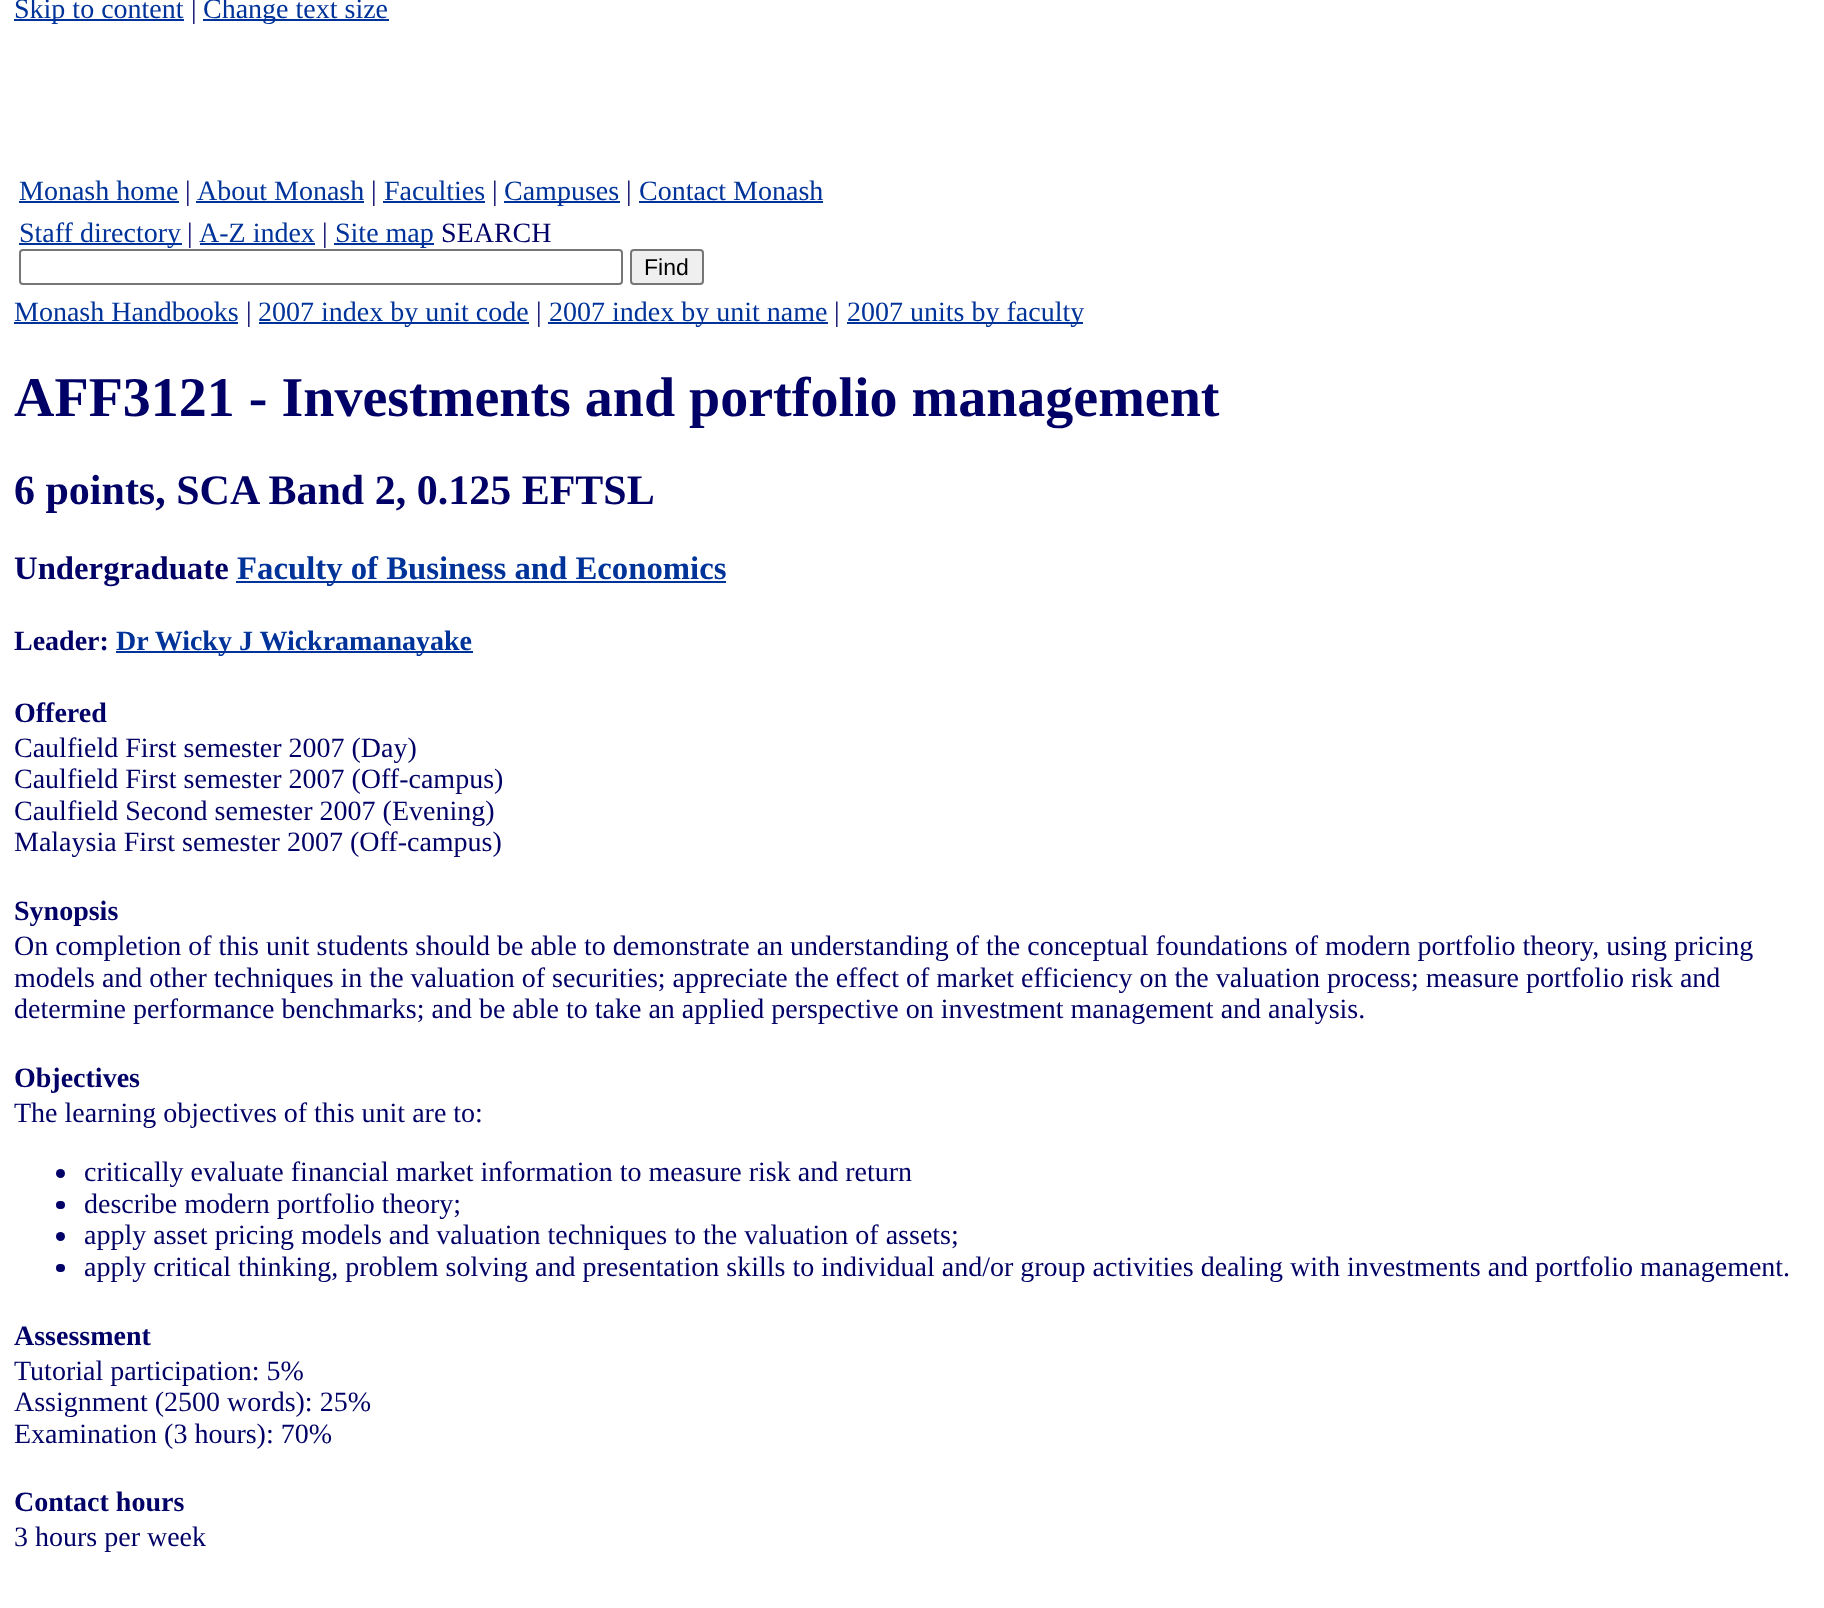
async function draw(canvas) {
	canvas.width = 1824;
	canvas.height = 1608;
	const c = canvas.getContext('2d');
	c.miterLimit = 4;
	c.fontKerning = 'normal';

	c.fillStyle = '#fff';
	c.fillRect(0, 0, 1824, 1608);
	c.fillStyle = '#039';
	c.fillRect(14, 19, 170, 2);
	c.font = '28px Liberation Serif';
	c.fillText('Skip to content', 14, 18);
	c.fillStyle = '#006';
	c.fillText('|', 191, 18);
	c.fillStyle = '#039';
	c.fillRect(203, 19, 186, 2);
	c.fillText('Change text size', 203, 18);
	c.fillText('Monash home', 19, 200);
	c.fillRect(19, 201, 160, 2);
	c.fillStyle = '#006';
	c.fillText('|', 185, 200);
	c.fillStyle = '#039';
	c.fillText('About Monash', 197, 200);
	c.fillRect(196, 201, 168, 2);
	c.fillStyle = '#006';
	c.fillText('|', 371, 200);
	c.fillStyle = '#039';
	c.fillText('Faculties', 384, 200);
	c.fillRect(383, 201, 102, 2);
	c.fillStyle = '#006';
	c.fillText('|', 492, 200);
	c.fillStyle = '#039';
	c.fillRect(504, 201, 116, 2);
	c.fillText('Campuses', 504, 200);
	c.fillStyle = '#006';
	c.fillText('|', 626, 200);
	c.fillStyle = '#039';
	c.fillText('Contact Monash', 639, 200);
	c.fillRect(639, 201, 184, 2);
	c.fillRect(19, 243, 163, 2);
	c.fillText('Staff directory', 19, 242);
	c.fillStyle = '#006';
	c.fillText('|', 187, 242);
	c.fillStyle = '#039';
	c.fillText('A-Z index', 199, 242);
	c.fillRect(200, 243, 115, 2);
	c.fillStyle = '#006';
	c.fillText('|', 322, 242);
	c.fillStyle = '#039';
	c.fillRect(334, 243, 100, 2);
	c.fillText('Site map', 335, 242);
	c.fillStyle = '#006';
	c.fillText('SEARCH', 441, 242);
	c.beginPath();
	c.roundRect(20, 250, 602, 34, 3);
	c.strokeStyle = '#767676';
	c.lineWidth = 2;
	c.stroke();
	c.fillStyle = '#efefef';
	c.beginPath();
	c.roundRect(631, 250, 72, 34, 3);
	c.fill();
	c.stroke();
	c.font = '23px Liberation Sans';
	c.fillStyle = '#000';
	c.fillText('Find', 644, 275);
	c.font = '28px Liberation Serif';
	c.fillStyle = '#039';
	c.fillText('Monash Handbooks', 14, 321);
	c.fillRect(14, 322, 224, 2);
	c.fillStyle = '#006';
	c.fillText('|', 246, 321);
	c.fillStyle = '#039';
	c.fillRect(259, 322, 270, 2);
	c.fillText('2007 index by unit code', 258, 321);
	c.fillStyle = '#006';
	c.fillText('|', 536, 321);
	c.fillStyle = '#039';
	c.fillRect(548, 322, 280, 2);
	c.fillText('2007 index by unit name', 549, 321);
	c.fillStyle = '#006';
	c.fillText('|', 834, 321);
	c.fillStyle = '#039';
	c.fillRect(847, 322, 236, 2);
	c.fillText('2007 units by faculty', 847, 321);
	c.font = 'bold 56px Liberation Serif';
	c.fillStyle = '#006';
	c.fillText('AFF3121 - Investments and portfolio management', 14, 416);
	c.font = 'bold 42px Liberation Serif';
	c.fillText('6 points, SCA Band 2, 0.125 EFTSL', 14, 504);
	c.font = 'bold 32.75px Liberation Serif';
	c.fillText('Undergraduate', 14, 579);
	c.fillStyle = '#039';
	c.fillRect(236, 581, 490, 2);
	c.fillText('Faculty of Business and Economics', 237, 579);
	c.font = 'bold 28px Liberation Serif';
	c.fillStyle = '#006';
	c.fillText('Leader:', 14, 650);
	c.fillStyle = '#039';
	c.fillRect(116, 651, 357, 2);
	c.fillText('Dr Wicky J Wickramanayake', 116, 650);
	c.fillStyle = '#006';
	c.fillText('Offered', 14, 722);
	c.font = '28px Liberation Serif';
	for (const [text, x, y] of [
		['Caulfield First semester 2007 (Day)', 14, 757],
		['Caulfield First semester 2007 (Off-campus)', 14, 788],
		['Caulfield Second semester 2007 (Evening)', 14, 820],
		['Malaysia First semester 2007 (Off-campus)', 14, 851],
	]) {
		c.fillText(text, x, y);
	}
	c.font = 'bold 28px Liberation Serif';
	c.fillText('Synopsis', 14, 920);
	c.font = '28px Liberation Serif';
	for (const [text, x, y] of [
		['On completion of this unit students should be able to demonstrate an understanding of the conceptual foundations of modern portfolio theory, using pricing', 14, 955],
		['models and other techniques in the valuation of securities; appreciate the effect of market efficiency on the valuation process; measure portfolio risk and', 14, 987],
		['determine performance benchmarks; and be able to take an applied perspective on investment management and analysis.', 14, 1018],
	]) {
		c.fillText(text, x, y);
	}
	c.font = 'bold 28px Liberation Serif';
	c.fillText('Objectives', 14, 1087);
	c.font = '28px Liberation Serif';
	c.fillText('The learning objectives of this unit are to:', 14, 1122);
	c.beginPath();
	c.arc(60.5, 1173.5, 4.5, 0, 2 * Math.PI);
	c.fill();
	c.fillText('critically evaluate financial market information to measure risk and return', 84, 1181);
	c.beginPath();
	c.roundRect(56, 1201, 9, 8, 4);
	c.fill();
	c.fillText('describe modern portfolio theory;', 84, 1213);
	c.beginPath();
	c.arc(60.5, 1236.5, 4.5, 0, 2 * Math.PI);
	c.fill();
	c.fillText('apply asset pricing models and valuation techniques to the valuation of assets;', 84, 1244);
	c.beginPath();
	c.roundRect(56, 1264, 9, 8, 4);
	c.fill();
	c.fillText('apply critical thinking, problem solving and presentation skills to individual and/or group activities dealing with investments and portfolio management.', 84, 1276);
	c.font = 'bold 28px Liberation Serif';
	c.fillText('Assessment', 14, 1345);
	c.font = '28px Liberation Serif';
	for (const [text, x, y] of [
		['Tutorial participation: 5%', 14, 1380],
		['Assignment (2500 words): 25%', 14, 1411],
		['Examination (3 hours): 70%', 14, 1443],
	]) {
		c.fillText(text, x, y);
	}
	c.font = 'bold 28px Liberation Serif';
	c.fillText('Contact hours', 14, 1511);
	c.font = '28px Liberation Serif';
	c.fillText('3 hours per week', 14, 1546);
}

draw(document.querySelector('canvas'));
